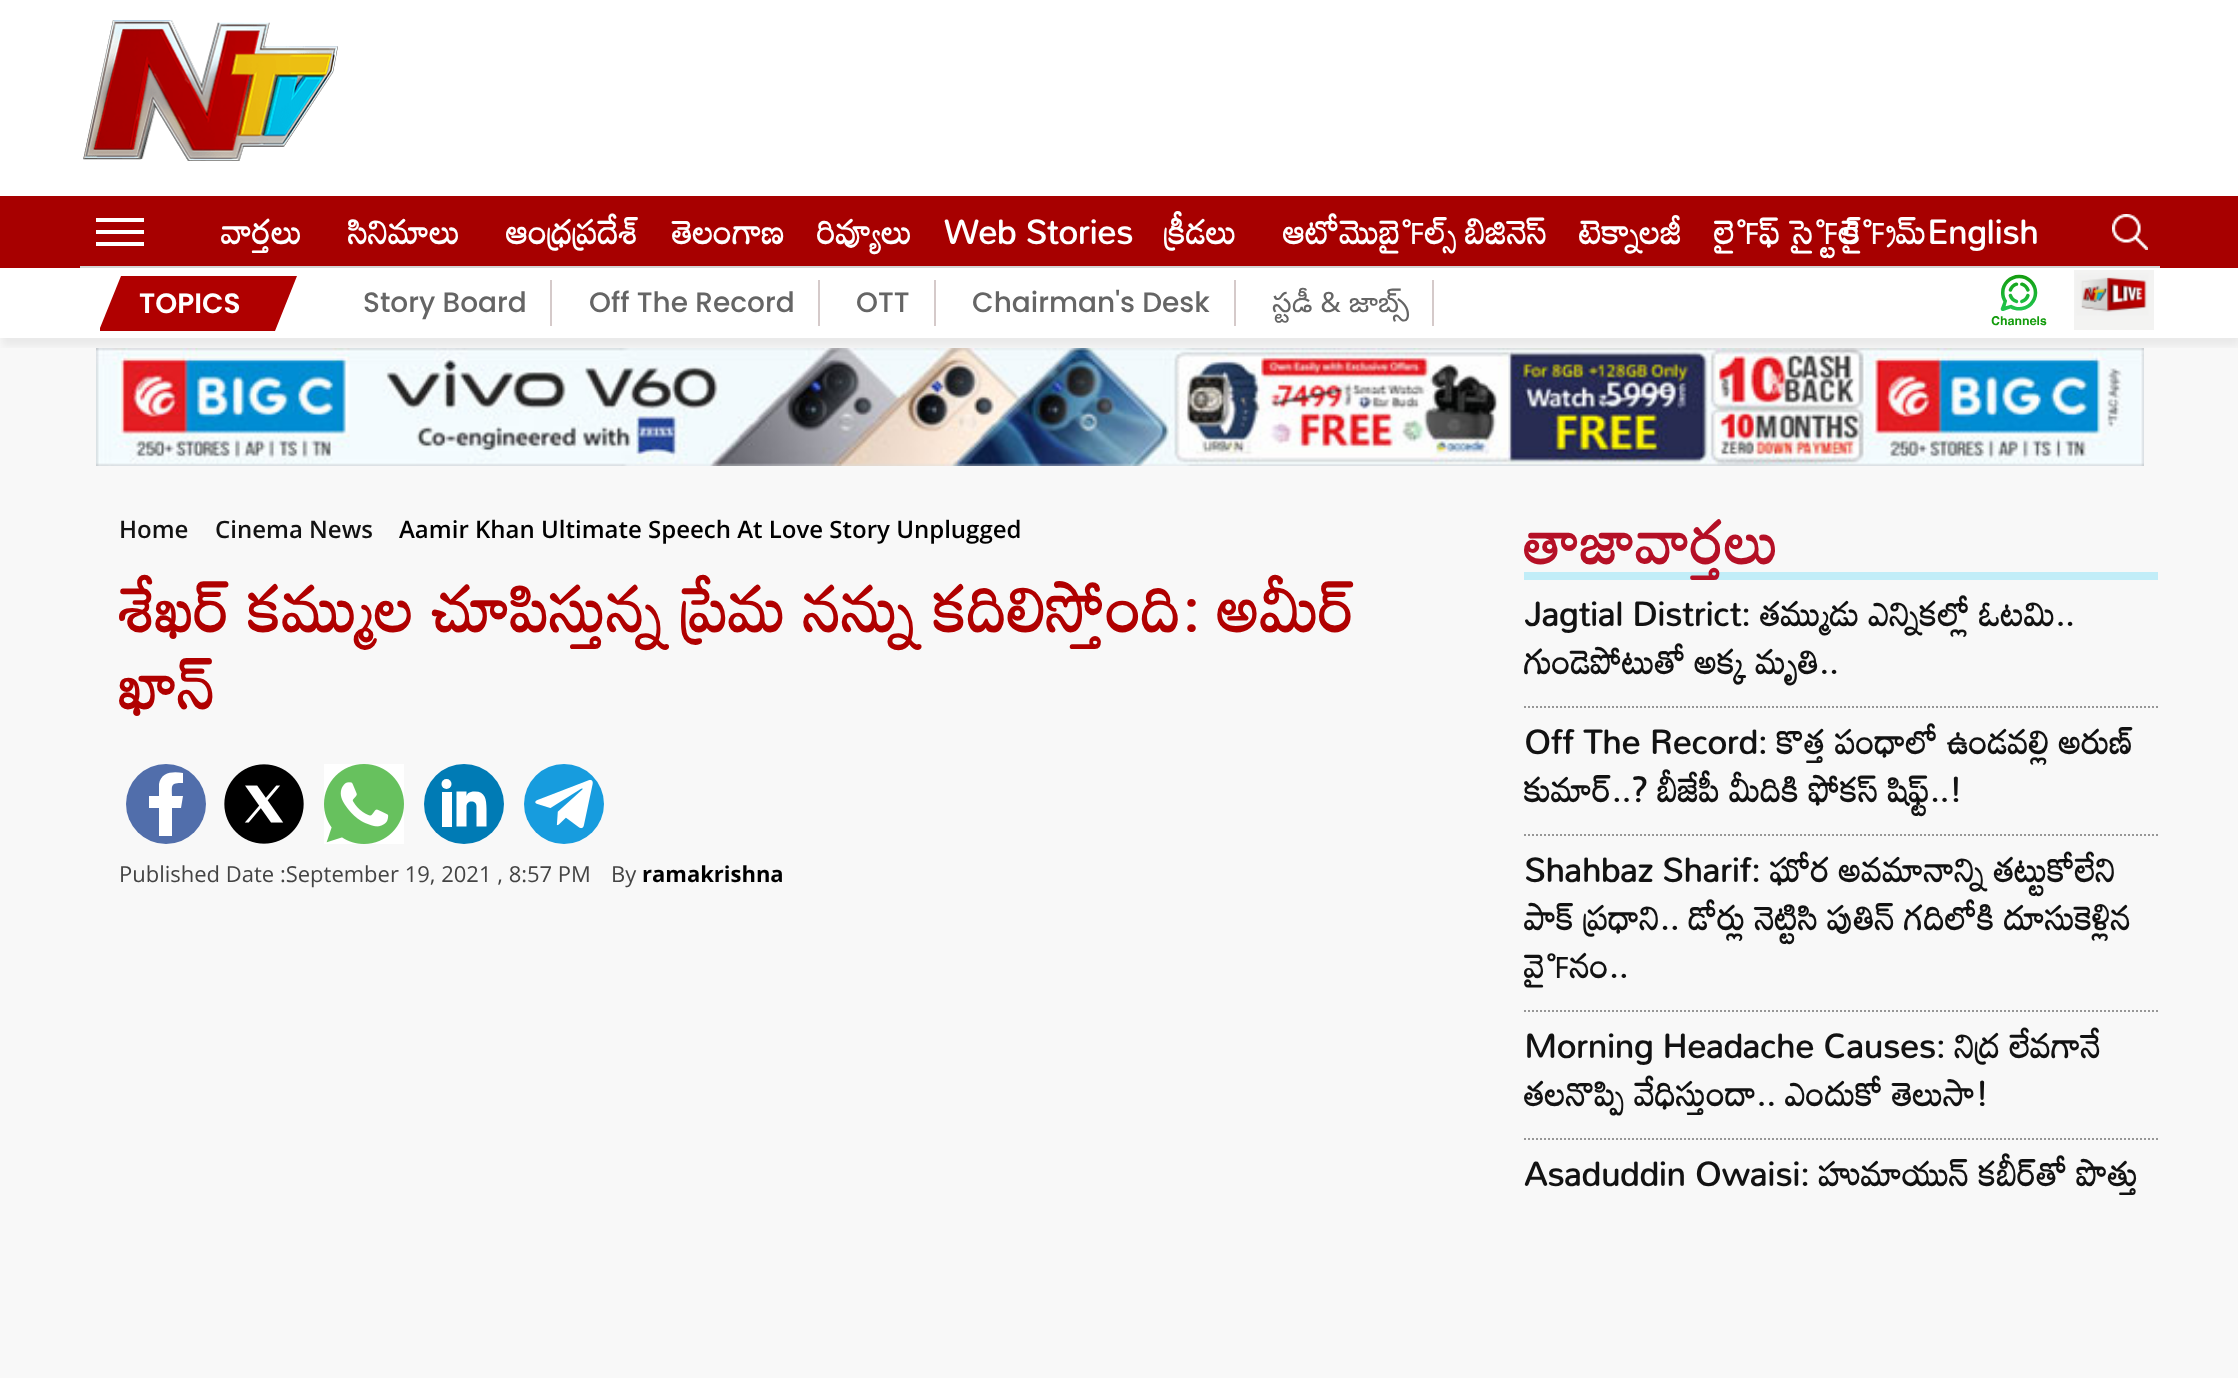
async function draw(canvas) {
	canvas.width = 2238;
	canvas.height = 1378;
	const c = canvas.getContext('2d');
	c.miterLimit = 4;
	c.fontKerning = 'normal';
	async function loadImage(src) {
		const img = new Image();
		img.src = src;
		await img.decode();
		return img;
	}

	c.fillStyle = '#f8f8f8';
	c.fillRect(0, 0, 2238, 1378);
	c.fillStyle = '#fff';
	c.fillRect(0, 0, 2238, 338);
	c.drawImage(await loadImage('img1.png'), 83, 20, 255, 141);
	c.fillStyle = '#a70000';
	c.fillRect(0, 196, 2238, 72);
	c.drawImage(await loadImage('img5.png'), 96, 348, 2048, 118);
	c.save();
	c.beginPath();
	c.rect(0, 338, 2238, 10);
	c.clip();
	c.fillStyle = '#0000000f';
	c.filter = 'blur(4px)';
	c.beginPath();
	c.rect(2, 276, 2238, 70);
	c.fill();
	c.filter = 'none';
	c.restore();
	for (const [x, y, w, h, color] of [
		[80, 266, 2080, 2, '#d4d4d4'],
		[96, 218, 48, 4, '#fff'],
		[96, 230, 48, 4, '#fff'],
		[96, 242, 48, 4, '#fff'],
	]) {
		c.fillStyle = color;
		c.fillRect(x, y, w, h);
	}
	c.font = 'bold 34px Mandali';
	for (const [text, x, y] of [
		['వార్తలు', 221, 244],
		['సినిమాలు', 348, 244],
		['ఆంధ్రప్రదేశ్', 506, 244],
		['తెలంగాణ', 672, 244],
		['రివ్యూలు', 817, 244],
		['Web Stories', 944, 244],
		['క్రీడలు', 1164, 244],
		['ఆటోమొబైల్స్', 1283, 244],
		['బిజినెస్‌', 1465, 244],
		['టెక్నాలజీ', 1579, 244],
		['లైఫ్ స్టైల్', 1714, 244],
		['క్రైమ్', 1843, 244],
		['English', 1927, 244],
	]) {
		c.fillText(text, x, y);
	}
	c.drawImage(await loadImage('img2.png'), 2112, 214, 36, 36);
	c.fillStyle = '#b00000';
	c.beginPath();
	c.moveTo(100, 328);
	c.lineTo(121, 276);
	c.lineTo(297, 276);
	c.lineTo(275, 331);
	c.lineTo(100, 331);
	c.closePath();
	c.fill();
	c.font = '600 28px Poppins';
	c.fillStyle = '#fff';
	c.fillText('TOPICS', 139, 313);
	c.fillStyle = '#d5caca';
	c.fillRect(550, 280, 2, 46);
	c.font = '500 28px Poppins';
	c.fillStyle = '#656565';
	c.fillText('Story Board', 363, 312);
	c.fillStyle = '#d5caca';
	c.fillRect(818, 280, 2, 46);
	c.fillStyle = '#656565';
	c.fillText('Off The Record', 589, 312);
	c.fillStyle = '#d5caca';
	c.fillRect(934, 280, 2, 46);
	c.fillStyle = '#656565';
	c.fillText('OTT', 856, 312);
	c.fillStyle = '#d5caca';
	c.fillRect(1234, 280, 2, 46);
	c.fillStyle = '#656565';
	c.fillText('Chairman\'s Desk', 972, 312);
	c.fillStyle = '#d5caca';
	c.fillRect(1432, 280, 2, 46);
	c.font = '28px Noto Sans Telugu';
	c.fillStyle = '#656565';
	c.fillText('స్టడీ & జాబ్స్', 1272, 312);
	c.drawImage(await loadImage('img3.png'), 1991, 274, 56, 52);
	c.drawImage(await loadImage('img4.png'), 2074, 270, 80, 60);
	c.font = '600 24px Open Sans';
	c.fillStyle = '#121212';
	c.fillText('Home', 119, 538);
	c.fillText('Cinema News', 215, 538);
	c.fillStyle = '#000';
	c.fillText('Aamir Khan Ultimate Speech At Love Story Unplugged', 399, 538);
	c.font = 'bold 64px Mandali';
	c.fillStyle = '#b00000';
	c.fillText('శేఖర్ కమ్ముల చూపిస్తున్న ప్రేమ నన్ను కదిలిస్తోంది: అమీర్', 119, 632);
	c.fillText('ఖాన్', 119, 709);
	c.fillStyle = '#516eab';
	c.beginPath();
	c.arc(166, 804, 40, 0, 2 * Math.PI);
	c.fill();
	c.fillStyle = '#fff';
	c.beginPath();
	c.moveTo(181, 808);
	c.lineTo(183, 796);
	c.lineTo(172, 796);
	c.bezierCurveTo(172, 785, 170, 783, 183, 783);
	c.lineTo(183, 773);
	c.bezierCurveTo(173, 771, 161, 772, 159, 784);
	c.lineTo(159, 796);
	c.lineTo(149, 796);
	c.lineTo(149, 808);
	c.lineTo(159, 808);
	c.lineTo(159, 836);
	c.bezierCurveTo(163, 836, 167, 836, 172, 836);
	c.lineTo(172, 808);
	c.closePath();
	c.fill();
	c.drawImage(await loadImage('img6.png'), 224, 764, 80, 80);
	c.drawImage(await loadImage('img7.png'), 324, 764, 80, 80);
	c.fillStyle = '#007bb5';
	c.beginPath();
	c.arc(464, 804, 40, 0, 2 * Math.PI);
	c.fill();
	c.fillStyle = '#fff';
	c.beginPath();
	c.arc(446.5, 784, 5, 0, 2 * Math.PI);
	c.fill();
	c.fillRect(442, 792, 10, 35);
	c.beginPath();
	c.moveTo(475, 791.5);
	c.bezierCurveTo(468.5, 791.5, 467, 794, 466.5, 796.5);
	c.lineTo(466.5, 791.5);
	c.lineTo(456.5, 791.5);
	c.lineTo(456.5, 826.5);
	c.lineTo(466.5, 826.5);
	c.lineTo(466.5, 806.5);
	c.bezierCurveTo(466.5, 803.5, 468.5, 801.5, 471.5, 801.5);
	c.bezierCurveTo(474.5, 801.5, 476.5, 803, 476.5, 806.5);
	c.lineTo(476.5, 826.5);
	c.lineTo(486.5, 826.5);
	c.lineTo(486.5, 809);
	c.bezierCurveTo(486.5, 799, 485, 791.5, 475, 791.5);
	c.closePath();
	c.fill();
	c.fillStyle = '#179cde';
	c.beginPath();
	c.arc(564, 804, 40, 0, 2 * Math.PI);
	c.fill();
	c.drawImage(await loadImage('img8.png'), 535, 779, 58, 50);
	c.font = '22px Open Sans';
	c.fillStyle = '#444';
	c.fillText('Published Date :September 19, 2021 , 8:57 PM', 119, 882);
	c.fillText('By', 611, 882);
	c.font = 'bold 22px Open Sans';
	c.fillStyle = '#000';
	c.fillText('ramakrishna', 642, 882);
	c.fillStyle = '#c1edf8';
	c.fillRect(1524, 572, 634, 8);
	c.font = 'bold 60px Mandali';
	c.fillStyle = '#b51026';
	c.fillText('తాజావార్తలు', 1524, 564);
	c.beginPath();
	c.moveTo(1524, 707);
	c.lineTo(2158, 707);
	c.strokeStyle = '#979797';
	c.lineWidth = 2;
	c.setLineDash([2, 2]);
	c.stroke();
	c.font = 'bold 34px Mandali';
	c.fillStyle = '#121212';
	c.fillText('Jagtial District: తమ్ముడు ఎన్నికల్లో ఓటమి..', 1524, 626);
	c.fillText('గుండెపోటుతో అక్క మృతి..', 1524, 674);
	c.beginPath();
	c.moveTo(1524, 835);
	c.lineTo(2158, 835);
	c.stroke();
	c.fillText('Off The Record: కొత్త పంధాలో ఉండవల్లి అరుణ్', 1524, 754);
	c.fillText('కుమార్..? బీజేపీ మీదికి ఫోకస్ షిఫ్ట్..!', 1524, 802);
	c.beginPath();
	c.moveTo(1524, 1011);
	c.lineTo(2158, 1011);
	c.stroke();
	for (const [text, x, y] of [
		['Shahbaz Sharif: ఘోర అవమానాన్ని తట్టుకోలేని', 1524, 882],
		['పాక్ ప్రధాని.. డోర్లు నెట్టిసి పుతిన్ గదిలోకి దూసుకెళ్లిన', 1524, 930],
		['వైనం..', 1524, 978],
	]) {
		c.fillText(text, x, y);
	}
	c.beginPath();
	c.moveTo(1524, 1139);
	c.lineTo(2158, 1139);
	c.stroke();
	for (const [text, x, y] of [
		['Morning Headache Causes: నిద్ర లేవగానే', 1524, 1058],
		['తలనొప్పి వేధిస్తుందా.. ఎందుకో తెలుసా!', 1524, 1106],
		['Asaduddin Owaisi: హుమాయున్ కబీర్‌తో పొత్తు', 1524, 1186],
	]) {
		c.fillText(text, x, y);
	}
}

draw(document.querySelector('canvas'));
